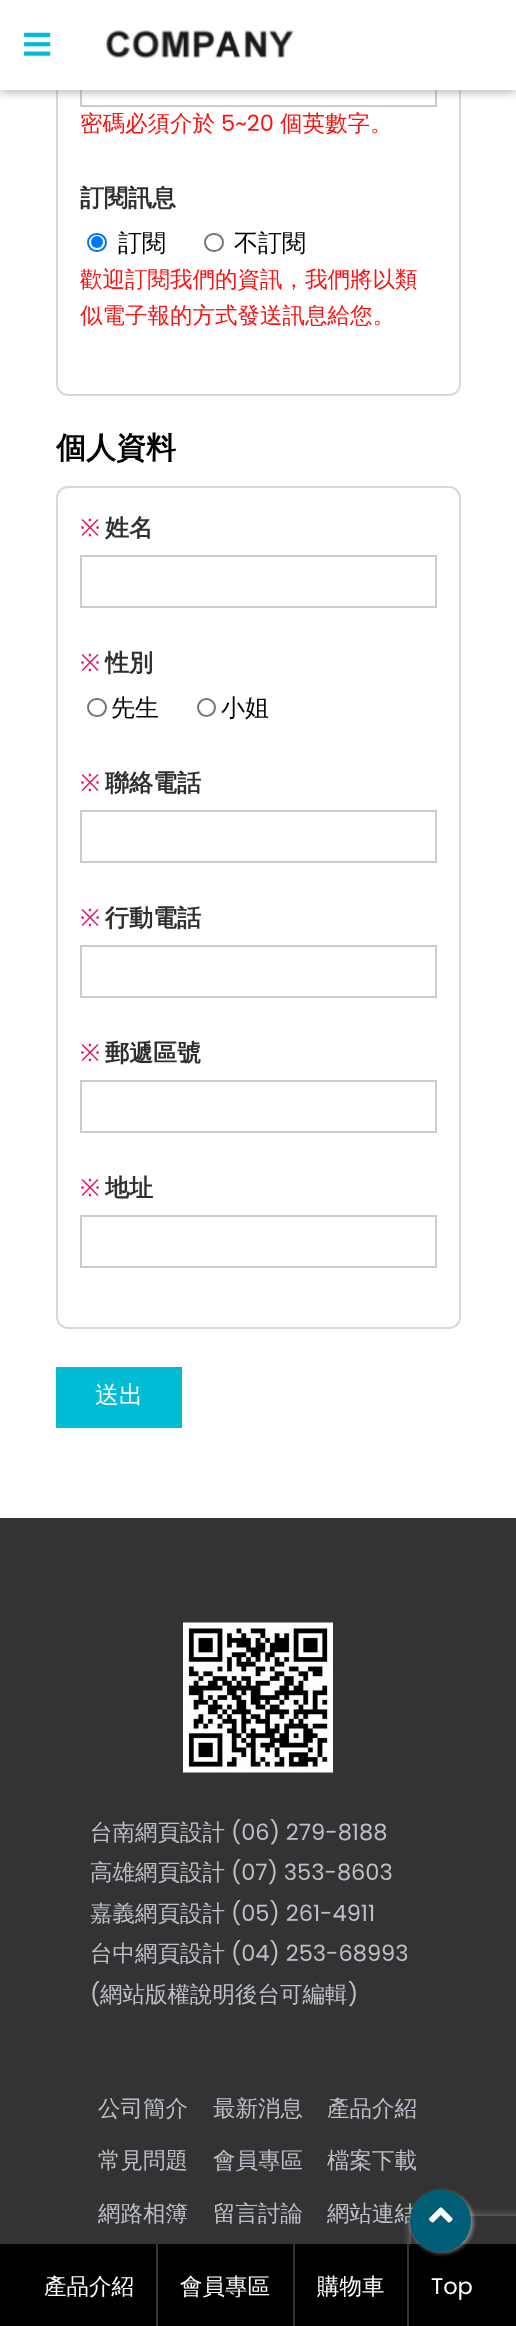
async function draw(canvas) {
	canvas.width = 516;
	canvas.height = 2326;
	const c = canvas.getContext('2d');
	c.miterLimit = 4;
	c.fontKerning = 'normal';
	async function loadImage(src) {
		const img = new Image();
		img.src = src;
		await img.decode();
		return img;
	}

	c.fillStyle = '#333';
	c.fillRect(0, 0, 516, 2326);
	c.fillStyle = '#fff';
	c.fillRect(0, 90, 516, 1428);
	c.beginPath();
	c.roundRect(57, -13, 403, 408, 11);
	c.strokeStyle = '#d8d8d8';
	c.lineWidth = 2;
	c.stroke();
	c.strokeStyle = '#ccc';
	c.strokeRect(81, 55, 355, 51);
	c.fillStyle = '#7e7e7e80';
	c.filter = 'blur(4px)';
	c.beginPath();
	c.rect(0, 3, 516, 90);
	c.fill();
	c.filter = 'none';
	c.fillStyle = '#fff';
	c.fillRect(0, 0, 516, 90);
	c.drawImage(await loadImage('img1.png'), 24, 32, 27, 24);
	c.drawImage(await loadImage('img2.png'), 106, 30, 188, 29);
	c.font = '500 22.5px WenQuanYi Zen Hei';
	c.fillStyle = '#ff0f0f';
	c.fillText('密碼必須介於', 80, 131);
	c.font = '22.5px Poppins';
	c.fillText('5~20', 221, 131);
	c.font = '500 22.5px WenQuanYi Zen Hei';
	c.fillText('個英數字。', 280, 131);
	c.font = 'bold 24px WenQuanYi Zen Hei';
	c.fillStyle = '#2f2f2f';
	c.fillText('訂閱訊息', 80, 206);
	c.beginPath();
	c.roundRect(88, 234, 18, 17, 8.5);
	c.strokeStyle = '#0075ff';
	c.stroke();
	c.fillStyle = '#0075ff';
	c.beginPath();
	c.arc(97, 242, 6, 0, 2 * Math.PI);
	c.fill();
	c.font = '500 24px WenQuanYi Zen Hei';
	c.fillStyle = '#000';
	c.fillText('訂閱', 118, 251);
	c.beginPath();
	c.roundRect(205, 234, 18, 17, 8.5);
	c.strokeStyle = '#767676';
	c.stroke();
	c.fillText('不訂閱', 234, 251);
	c.font = '500 22.5px WenQuanYi Zen Hei';
	c.fillStyle = '#ff0f0f';
	c.fillText('歡迎訂閱我們的資訊，我們將以類', 80, 287);
	c.fillText('似電子報的方式發送訊息給您。', 80, 323);
	c.font = 'bold 30px WenQuanYi Zen Hei';
	c.fillStyle = '#000';
	c.fillText('個人資料', 56, 458);
	c.beginPath();
	c.roundRect(57, 487, 403, 841, 11);
	c.strokeStyle = '#d8d8d8';
	c.stroke();
	c.font = '24px Noto Sans';
	c.fillStyle = '#e61f6e';
	c.fillText('※', 80, 536);
	c.font = 'bold 24px WenQuanYi Zen Hei';
	c.fillStyle = '#2f2f2f';
	c.fillText('姓名', 105, 536);
	c.strokeStyle = '#ccc';
	c.strokeRect(81, 556, 355, 51);
	c.font = '24px Noto Sans';
	c.fillStyle = '#e61f6e';
	c.fillText('※', 80, 671);
	c.font = 'bold 24px WenQuanYi Zen Hei';
	c.fillStyle = '#2f2f2f';
	c.fillText('性別', 105, 671);
	c.beginPath();
	c.roundRect(88, 699, 18, 17, 8.5);
	c.strokeStyle = '#767676';
	c.stroke();
	c.font = '500 24px WenQuanYi Zen Hei';
	c.fillStyle = '#000';
	c.fillText('先生', 111, 716);
	c.beginPath();
	c.arc(206.5, 707.5, 8.5, 0, 2 * Math.PI);
	c.stroke();
	c.fillText('小姐', 221, 716);
	c.font = '24px Noto Sans';
	c.fillStyle = '#e61f6e';
	c.fillText('※', 80, 791);
	c.font = 'bold 24px WenQuanYi Zen Hei';
	c.fillStyle = '#2f2f2f';
	c.fillText('聯絡電話', 105, 791);
	c.strokeStyle = '#ccc';
	c.strokeRect(81, 811, 355, 51);
	c.font = '24px Noto Sans';
	c.fillStyle = '#e61f6e';
	c.fillText('※', 80, 926);
	c.font = 'bold 24px WenQuanYi Zen Hei';
	c.fillStyle = '#2f2f2f';
	c.fillText('行動電話', 105, 926);
	c.strokeRect(81, 946, 355, 51);
	c.font = '24px Noto Sans';
	c.fillStyle = '#e61f6e';
	c.fillText('※', 80, 1061);
	c.font = 'bold 24px WenQuanYi Zen Hei';
	c.fillStyle = '#2f2f2f';
	c.fillText('郵遞區號', 105, 1061);
	c.strokeRect(81, 1081, 355, 51);
	c.font = '24px Noto Sans';
	c.fillStyle = '#e61f6e';
	c.fillText('※', 80, 1196);
	c.font = 'bold 24px WenQuanYi Zen Hei';
	c.fillStyle = '#2f2f2f';
	c.fillText('地址', 105, 1196);
	c.strokeRect(81, 1216, 355, 51);
	c.fillStyle = '#00bcd4';
	c.fillRect(56, 1367, 126, 61);
	c.font = '500 24px WenQuanYi Zen Hei';
	c.fillStyle = '#fff';
	c.fillText('送出', 95, 1403);
	c.drawImage(await loadImage('img3.png'), 183, 1622, 150, 151);
	c.font = '500 22.5px WenQuanYi Zen Hei';
	c.fillStyle = '#bcc0ca';
	c.fillText('台南網頁設計', 90, 1840);
	c.font = '22.5px Poppins';
	c.fillText('(06) 279-8188', 231, 1840);
	c.font = '500 22.5px WenQuanYi Zen Hei';
	c.fillText('高雄網頁設計', 90, 1880);
	c.font = '22.5px Poppins';
	c.fillText('(07) 353-8603', 231, 1880);
	c.font = '500 22.5px WenQuanYi Zen Hei';
	c.fillText('嘉義網頁設計', 90, 1921);
	c.font = '22.5px Poppins';
	c.fillText('(05) 261-4911', 231, 1921);
	c.font = '500 22.5px WenQuanYi Zen Hei';
	c.fillText('台中網頁設計', 90, 1961);
	c.font = '22.5px Poppins';
	c.fillText('(04) 253-68993', 231, 1961);
	c.fillText('(', 90, 2002);
	c.font = '500 22.5px WenQuanYi Zen Hei';
	c.fillText('網站版權說明後台可編輯', 100, 2002);
	c.font = '22.5px Poppins';
	c.fillText(')', 348, 2002);
	c.font = '500 22.5px WenQuanYi Zen Hei';
	for (const [text, x, y] of [
		['公司簡介', 98, 2116],
		['最新消息', 213, 2116],
		['產品介紹', 327, 2116],
		['常見問題', 98, 2168],
		['會員專區', 213, 2168],
		['檔案下載', 327, 2168],
		['網路相簿', 98, 2221],
		['留言討論', 213, 2221],
		['網站連結', 327, 2221],
	]) {
		c.fillText(text, x, y);
	}
	c.save();
	c.beginPath();
	c.moveTo(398, 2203);
	c.lineTo(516, 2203);
	c.lineTo(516, 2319);
	c.lineTo(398, 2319);
	c.closePath();
	c.moveTo(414, 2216);
	c.lineTo(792, 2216);
	c.bezierCurveTo(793.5, 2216, 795, 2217.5, 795, 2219);
	c.lineTo(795, 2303);
	c.bezierCurveTo(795, 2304.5, 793.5, 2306, 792, 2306);
	c.lineTo(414, 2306);
	c.bezierCurveTo(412.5, 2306, 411, 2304.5, 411, 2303);
	c.lineTo(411, 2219);
	c.bezierCurveTo(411, 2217.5, 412.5, 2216, 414, 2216);
	c.closePath();
	c.clip('evenodd');
	c.fillStyle = '#808080';
	c.filter = 'blur(4px)';
	c.beginPath();
	c.roundRect(411, 2216, 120, 90, 3);
	c.fill();
	c.filter = 'none';
	c.restore();
	c.fillStyle = '#000';
	c.fillRect(0, 2244, 516, 82);
	c.fillStyle = '#333';
	c.fillRect(156, 2244, 2, 82);
	c.fillStyle = '#fff';
	c.fillText('產品介紹', 44, 2294);
	c.fillStyle = '#333';
	c.fillRect(293, 2244, 2, 82);
	c.fillStyle = '#fff';
	c.fillText('會員專區', 180, 2294);
	c.fillStyle = '#333';
	c.fillRect(407, 2244, 2, 82);
	c.fillStyle = '#fff';
	c.fillText('購物車', 317, 2294);
	c.font = '22.5px Poppins';
	c.fillText('Top', 431, 2294);
	c.fillStyle = '#ffffff80';
	c.filter = 'blur(2px)';
	c.beginPath();
	c.roundRect(411, 2192, 62, 61, 30.5);
	c.fill();
	c.filter = 'none';
	c.fillStyle = '#005d78';
	c.beginPath();
	c.roundRect(410, 2190, 61, 62, 30.5);
	c.fill();
	c.drawImage(await loadImage('img4.png'), 429, 2207, 24, 16);
}

draw(document.querySelector('canvas'));
